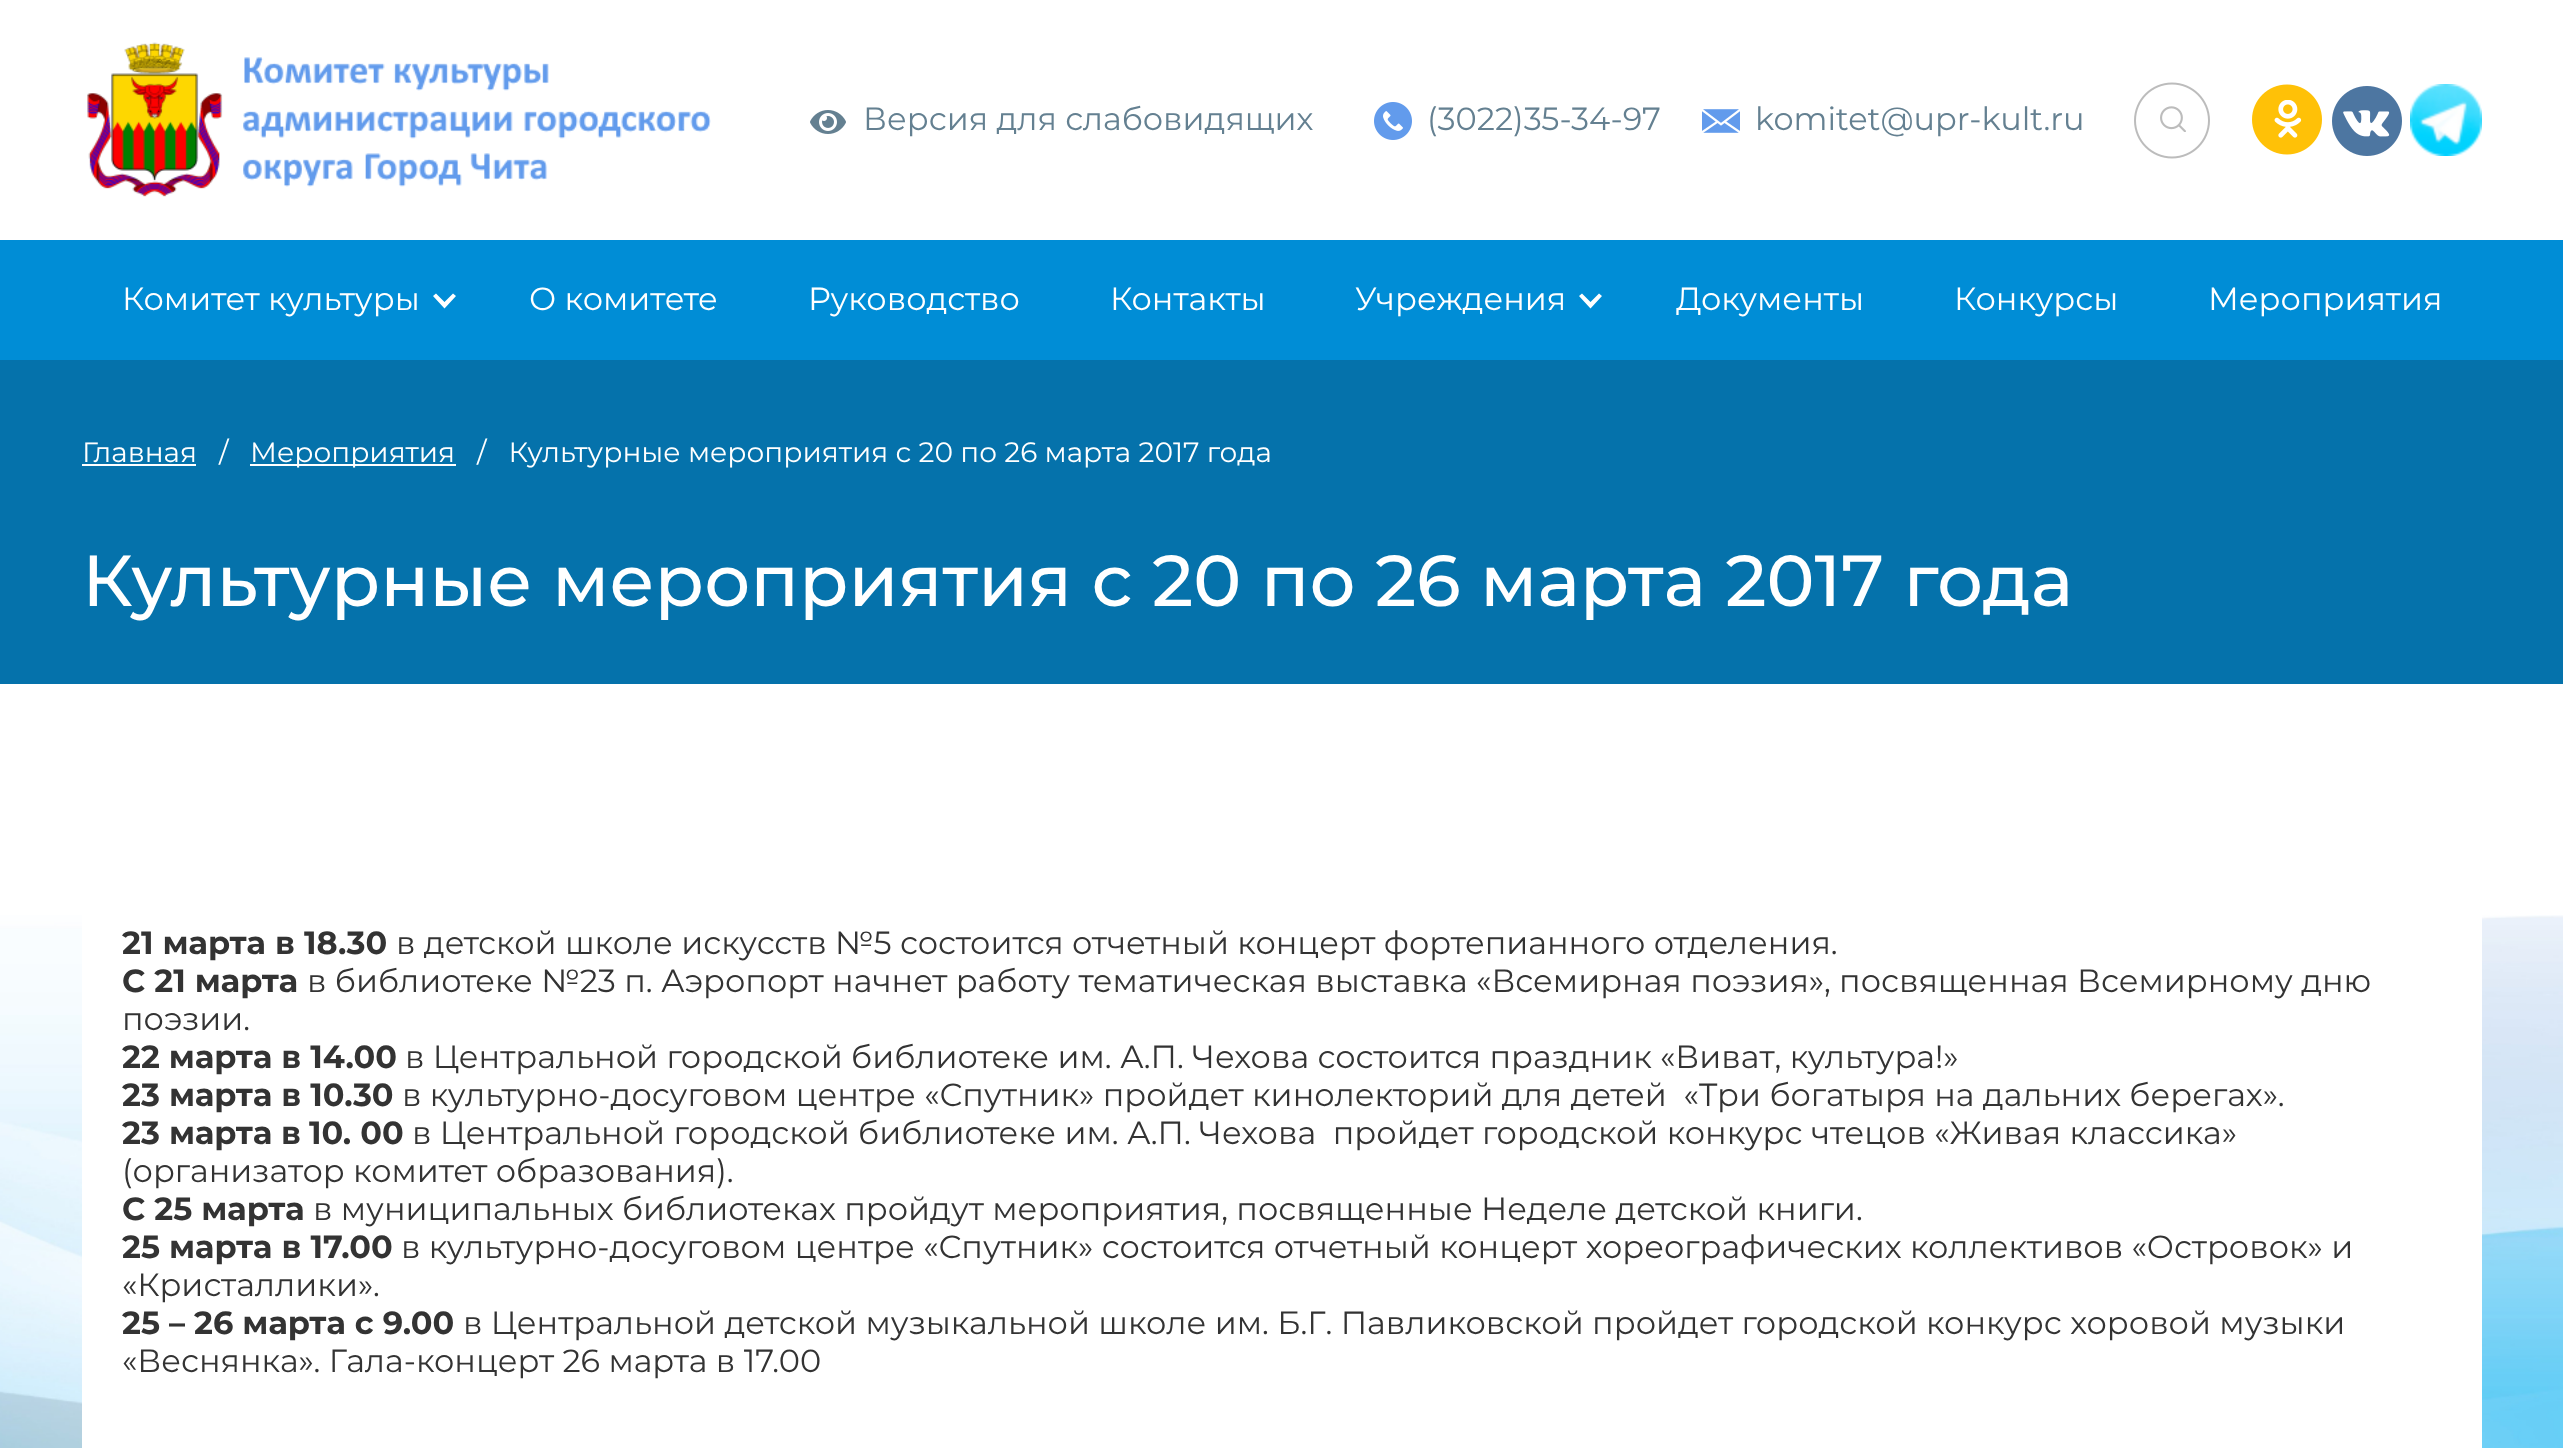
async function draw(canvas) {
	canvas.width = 2563;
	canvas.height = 1448;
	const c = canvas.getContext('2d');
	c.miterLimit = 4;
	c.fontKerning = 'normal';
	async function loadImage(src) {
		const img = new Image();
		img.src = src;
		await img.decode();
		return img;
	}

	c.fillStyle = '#fff';
	c.fillRect(0, 0, 2563, 1448);
	c.drawImage(await loadImage('img1.png'), 87, 42, 624, 155);
	c.drawImage(await loadImage('img2.png'), 810, 110, 36, 24);
	c.font = '32px Montserrat';
	c.fillStyle = '#648091';
	c.fillText('Версия для слабовидящих', 863, 130);
	c.drawImage(await loadImage('img3.png'), 1374, 102, 38, 38);
	c.fillText('(3022)35-34-97', 1427, 130);
	c.drawImage(await loadImage('img4.png'), 1702, 109, 38, 24);
	c.fillText('komitet@upr-kult.ru', 1755, 130);
	c.drawImage(await loadImage('img5.png'), 2134, 82, 76, 77);
	c.drawImage(await loadImage('img6.png'), 2252, 84, 70, 71);
	c.drawImage(await loadImage('img7.png'), 2332, 86, 70, 70);
	c.drawImage(await loadImage('img8.png'), 2410, 84, 72, 72);
	c.fillStyle = '#008dd6';
	c.fillRect(0, 240, 2563, 120);
	c.fillStyle = '#fff';
	c.fillText('Комитет культуры', 122, 310);
	c.beginPath();
	c.moveTo(453, 293.5);
	c.lineTo(444.5, 302);
	c.lineTo(436, 293.5);
	c.lineTo(433, 296);
	c.lineTo(444.5, 308.5);
	c.lineTo(456, 296);
	c.closePath();
	c.fill();
	for (const [text, x, y] of [
		['О комитете', 529, 310],
		['Руководство', 808, 310],
		['Контакты', 1110, 310],
		['Учреждения', 1355, 310],
	]) {
		c.fillText(text, x, y);
	}
	c.beginPath();
	c.moveTo(1599, 293.5);
	c.lineTo(1590.5, 302);
	c.lineTo(1582, 293.5);
	c.lineTo(1579, 296);
	c.lineTo(1590.5, 308.5);
	c.lineTo(1602, 296);
	c.closePath();
	c.fill();
	for (const [text, x, y] of [
		['Документы', 1676, 310],
		['Конкурсы', 1954, 310],
		['Мероприятия', 2208, 310],
	]) {
		c.fillText(text, x, y);
	}
	c.fillStyle = '#0572ab';
	c.fillRect(0, 360, 2563, 324);
	c.font = '28px Montserrat';
	c.fillStyle = '#fff';
	c.fillText('Главная', 82, 462);
	c.fillRect(82, 464, 114, 2);
	c.fillText('/', 219, 462);
	c.fillRect(250, 464, 206, 2);
	c.fillText('Мероприятия', 250, 462);
	c.fillText('/   Культурные мероприятия с 20 по 26 марта 2017 года', 477, 462);
	c.font = '500 72px Montserrat';
	c.fillText('Культурные мероприятия с 20 по 26 марта 2017 года', 82, 606);
	c.drawImage(await loadImage('img9.png'), 0, 915, 2563, 533);
	c.fillRect(82, 915, 2400, 533);
	c.font = 'bold 32px Montserrat';
	c.fillStyle = '#333';
	c.fillText('21 марта в 18.30', 122, 954);
	c.font = '32px Montserrat';
	c.fillText('в детской школе искусств №5 состоится отчетный концерт фортепианного отделения.', 396, 954);
	c.font = 'bold 32px Montserrat';
	c.fillText('С 21 марта', 122, 992);
	c.font = '32px Montserrat';
	c.fillText('в библиотеке №23 п. Аэропорт начнет работу тематическая выставка «Всемирная поэзия», посвященная Всемирному дню', 307, 992);
	c.fillText('поэзии.', 122, 1030);
	c.font = 'bold 32px Montserrat';
	c.fillText('22 марта в 14.00', 122, 1068);
	c.font = '32px Montserrat';
	c.fillText('в Центральной городской библиотеке им. А.П. Чехова состоится праздник «Виват, культура!»', 405, 1068);
	c.font = 'bold 32px Montserrat';
	c.fillText('23 марта в 10.30', 122, 1106);
	c.font = '32px Montserrat';
	c.fillText('в культурно-досуговом центре «Спутник» пройдет кинолекторий для детей  «Три богатыря на дальних берегах».', 402, 1106);
	c.font = 'bold 32px Montserrat';
	for (const [text, x, y] of [
		['23 марта', 122, 1144],
		['в', 281, 1144],
		['10. 00', 309, 1144],
	]) {
		c.fillText(text, x, y);
	}
	c.font = '32px Montserrat';
	c.fillText('в Центральной городской библиотеке им. А.П. Чехова  пройдет городской конкурс чтецов «Живая классика»', 412, 1144);
	c.fillText('(организатор комитет образования).', 122, 1182);
	c.font = 'bold 32px Montserrat';
	c.fillText('С 25 марта', 122, 1220);
	c.font = '32px Montserrat';
	c.fillText('в муниципальных библиотеках пройдут мероприятия, посвященные Неделе детской книги.', 313, 1220);
	c.font = 'bold 32px Montserrat';
	c.fillText('25 марта в 17.00', 122, 1258);
	c.font = '32px Montserrat';
	c.fillText('в культурно-досуговом центре «Спутник» состоится отчетный концерт хореографических коллективов «Островок» и', 401, 1258);
	c.fillText('«Кристаллики».', 122, 1296);
	c.font = 'bold 32px Montserrat';
	c.fillText('25 – 26 марта с 9.00', 122, 1334);
	c.font = '32px Montserrat';
	c.fillText('в Центральной детской музыкальной школе им. Б.Г. Павликовской пройдет городской конкурс хоровой музыки', 463, 1334);
	c.fillText('«Веснянка». Гала-концерт 26 марта в 17.00', 122, 1372);
}

draw(document.querySelector('canvas'));
